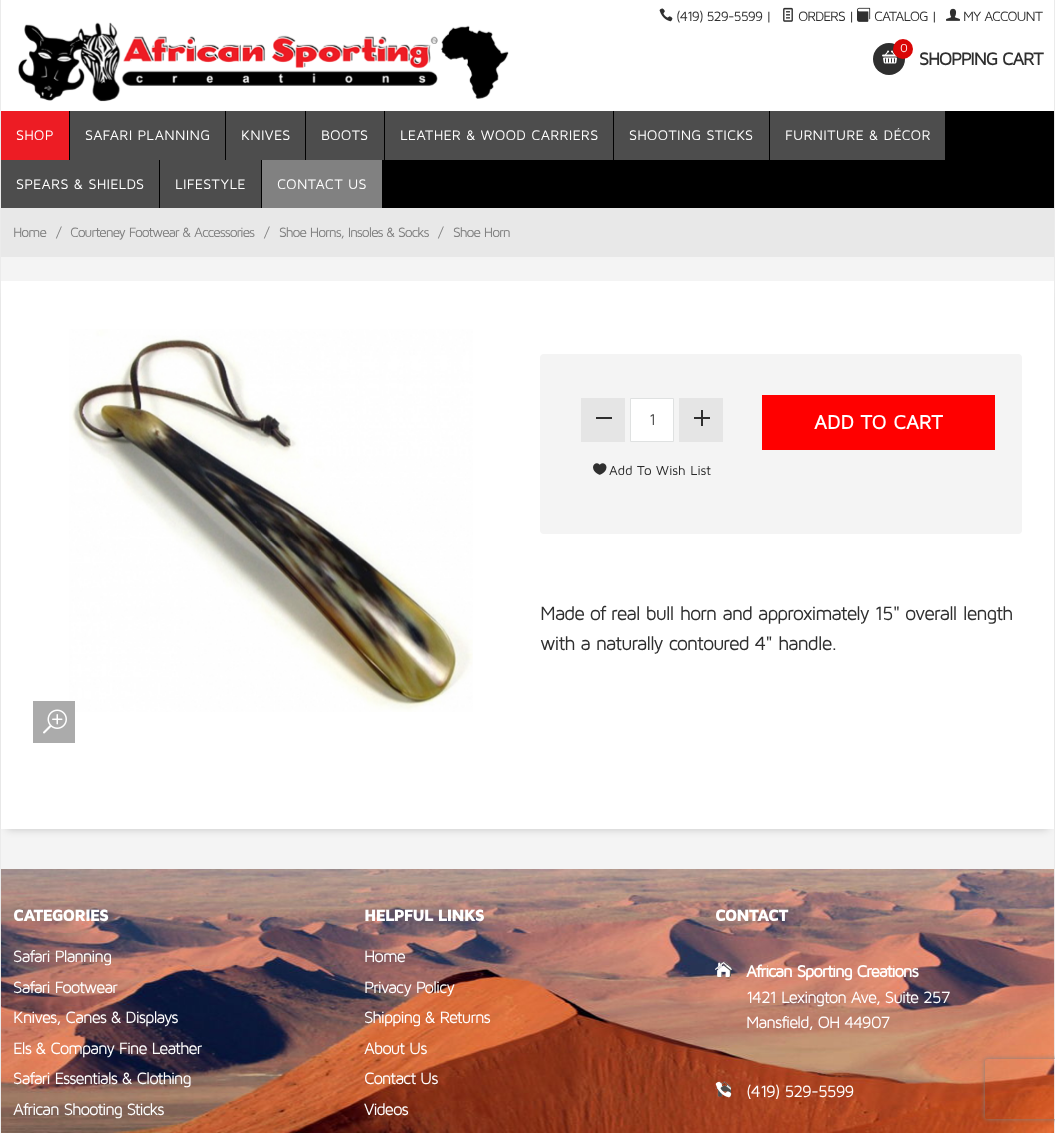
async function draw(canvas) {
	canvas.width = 1055;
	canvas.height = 1133;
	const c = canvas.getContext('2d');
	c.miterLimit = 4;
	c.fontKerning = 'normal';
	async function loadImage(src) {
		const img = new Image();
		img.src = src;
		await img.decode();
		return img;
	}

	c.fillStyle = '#f4f4f4';
	c.fillRect(0, 0, 1055, 1133);
	for (const [x, y, w, h, color] of [
		[1054, 0, 1, 1133, '#ebebeb'],
		[0, 0, 1, 1133, '#ebebeb'],
		[1, 0, 1053, 111, '#fff'],
	]) {
		c.fillStyle = color;
		c.fillRect(x, y, w, h);
	}
	c.drawImage(await loadImage('img1.png'), 18, 22, 491, 80);
	c.drawImage(await loadImage('img2.png'), 659, 8, 14, 14);
	c.letterSpacing = '-1px';
	c.font = '14px Maven Pro';
	c.fillStyle = '#2f2f2f';
	c.fillText('(419) 529-5599 |', 676, 21);
	c.drawImage(await loadImage('img3.png'), 783, 7, 10, 15);
	c.fillText('ORDERS |', 798, 21);
	c.drawImage(await loadImage('img4.png'), 857, 7, 14, 15);
	c.fillText('CATALOG |', 874, 21);
	c.drawImage(await loadImage('img5.png'), 946, 8, 14, 13);
	c.fillText('MY ACCOUNT', 963, 21);
	c.beginPath();
	c.arc(889, 59, 16, 0, 2 * Math.PI);
	c.fill();
	c.drawImage(await loadImage('img6.png'), 882, 50, 15, 14);
	c.fillStyle = '#da0606';
	c.beginPath();
	c.arc(903, 49, 10, 0, 2 * Math.PI);
	c.fill();
	c.font = '12px Maven Pro';
	c.fillStyle = '#fff';
	c.fillText('0', 900, 52);
	c.font = 'bold 18px Maven Pro';
	c.fillStyle = '#2f2f2f';
	c.fillText('SHOPPING CART', 919, 65);
	for (const [x, y, w, h, color] of [
		[383, 111, 671, 97, '#000'],
		[1, 111, 68, 49, '#ed1c24'],
		[69, 111, 1, 49, '#000'],
	]) {
		c.fillStyle = color;
		c.fillRect(x, y, w, h);
	}
	c.letterSpacing = '0.25px';
	c.font = '14.4px Maven Pro';
	c.fillStyle = '#fff';
	c.fillText('SHOP', 16, 140);
	c.fillStyle = '#4d4d4d';
	c.fillRect(70, 111, 155, 49);
	c.fillStyle = '#000';
	c.fillRect(225, 111, 1, 49);
	c.fillStyle = '#fff';
	c.fillText('SAFARI PLANNING', 85, 140);
	c.fillStyle = '#4d4d4d';
	c.fillRect(226, 111, 79, 49);
	c.fillStyle = '#000';
	c.fillRect(305, 111, 1, 49);
	c.fillStyle = '#fff';
	c.fillText('KNIVES', 241, 140);
	c.fillStyle = '#4d4d4d';
	c.fillRect(306, 111, 78, 49);
	c.fillStyle = '#fff';
	c.fillText('BOOTS', 321, 140);
	c.fillStyle = '#4d4d4d';
	c.fillRect(385, 111, 228, 49);
	c.fillStyle = '#fff';
	c.fillText('LEATHER & WOOD CARRIERS', 400, 140);
	c.fillStyle = '#4d4d4d';
	c.fillRect(614, 111, 155, 49);
	c.fillStyle = '#fff';
	c.fillText('SHOOTING STICKS', 629, 140);
	c.fillStyle = '#4d4d4d';
	c.fillRect(770, 111, 175, 49);
	c.fillStyle = '#fff';
	c.fillText('FURNITURE & DÉCOR', 785, 140);
	c.fillStyle = '#4d4d4d';
	c.fillRect(1, 160, 158, 48);
	c.fillStyle = '#000';
	c.fillRect(159, 160, 1, 48);
	c.fillStyle = '#fff';
	c.fillText('SPEARS & SHIELDS', 16, 189);
	c.fillStyle = '#4d4d4d';
	c.fillRect(160, 160, 101, 48);
	c.fillStyle = '#000';
	c.fillRect(261, 160, 1, 48);
	c.fillStyle = '#fff';
	c.fillText('LIFESTYLE', 175, 189);
	c.fillStyle = '#818181';
	c.fillRect(262, 160, 120, 48);
	c.fillStyle = '#000';
	c.fillRect(382, 160, 1, 48);
	c.fillStyle = '#fff';
	c.fillText('CONTACT US', 277, 189);
	c.fillStyle = '#e8e8e8';
	c.fillRect(1, 208, 1053, 49);
	c.letterSpacing = '-1px';
	c.font = '14px Maven Pro';
	c.fillStyle = '#818181';
	for (const [text, x, y] of [
		['Home', 13, 237],
		['/', 56, 237],
		['Courteney Footwear & Accessories', 70, 237],
		['/', 264, 237],
		['Shoe Horns, Insoles & Socks', 279, 237],
		['/', 438, 237],
		['Shoe Horn', 453, 237],
	]) {
		c.fillText(text, x, y);
	}
	c.fillStyle = '#00000033';
	c.filter = 'blur(4px)';
	c.beginPath();
	c.rect(7, 293, 1041, 536);
	c.fill();
	c.filter = 'none';
	c.fillStyle = '#fff';
	c.fillRect(1, 281, 1053, 548);
	c.drawImage(await loadImage('img7.png'), 69, 329, 404, 383);
	c.fillStyle = '#ababab';
	c.fillRect(33, 701, 42, 42);
	c.drawImage(await loadImage('img8.png'), 43, 709, 24, 25);
	c.fillStyle = '#f4f4f4';
	c.beginPath();
	c.roundRect(540, 354, 482, 180, 4);
	c.fill();
	c.fillStyle = '#e5e5e5';
	c.fillRect(581, 398, 44, 44);
	c.fillStyle = '#2f2f2f';
	c.fillRect(596, 417, 16, 2);
	c.fillStyle = '#fff';
	c.beginPath();
	c.rect(630.5, 398.5, 43, 43);
	c.fill();
	c.strokeStyle = '#dfe1e1';
	c.stroke();
	c.letterSpacing = '0px';
	c.font = '16px Maven Pro';
	c.fillStyle = '#4d4d4d';
	c.fillText('1', 649, 425);
	c.fillStyle = '#e5e5e5';
	c.fillRect(679, 398, 44, 44);
	c.drawImage(await loadImage('img9.png'), 694, 410, 16, 16);
	c.drawImage(await loadImage('img10.png'), 593, 463, 14, 12);
	c.font = '13.5px Maven Pro';
	c.fillStyle = '#292929';
	c.fillText('Add To Wish List', 609, 475);
	c.fillStyle = '#f00';
	c.fillRect(762, 395, 233, 55);
	c.font = 'bold 20px Maven Pro';
	c.fillStyle = '#fff';
	c.fillText('ADD TO CART', 814, 429);
	c.letterSpacing = '-1px';
	c.font = '20px Maven Pro';
	c.fillStyle = '#2f2f2f';
	c.fillText('Made of real bull horn and approximately 15" overall length', 540, 620);
	c.fillText('with a naturally contoured 4" handle.', 540, 650);
	c.drawImage(await loadImage('img11.png'), 1, 869, 1053, 264);
	c.font = '900 17px Maven Pro';
	c.fillStyle = '#fff';
	c.fillText('CATEGORIES', 13, 921);
	c.font = '17px Maven Pro';
	for (const [text, x, y] of [
		['Safari Planning', 13, 962],
		['Safari Footwear', 13, 993],
		['Knives, Canes & Displays', 13, 1023],
		['Els & Company Fine Leather', 13, 1054],
		['Safari Essentials & Clothing', 13, 1084],
		['African Shooting Sticks', 13, 1115],
	]) {
		c.fillText(text, x, y);
	}
	c.font = '900 17px Maven Pro';
	c.fillText('HELPFUL LINKS', 364, 921);
	c.font = '17px Maven Pro';
	for (const [text, x, y] of [
		['Home', 364, 962],
		['Privacy Policy', 364, 993],
		['Shipping & Returns', 364, 1023],
		['About Us', 364, 1054],
		['Contact Us', 364, 1084],
		['Videos', 364, 1115],
	]) {
		c.fillText(text, x, y);
	}
	c.font = '900 17px Maven Pro';
	c.fillText('CONTACT', 715, 921);
	c.drawImage(await loadImage('img12.png'), 715, 961, 16, 16);
	c.drawImage(await loadImage('img13.png'), 715, 962, 17, 15);
	c.font = 'bold 17px Maven Pro';
	c.fillText('African Sporting Creations', 746, 977);
	c.font = '17px Maven Pro';
	c.fillText('1421 Lexington Ave, Suite 257', 746, 1003);
	c.fillText('Mansfield, OH 44907', 746, 1028);
	c.drawImage(await loadImage('img14.png'), 715, 1081, 16, 16);
	c.drawImage(await loadImage('img15.png'), 715, 1081, 17, 17);
	c.fillText('(419) 529-5599', 746, 1097);
	c.save();
	c.beginPath();
	c.moveTo(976, 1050);
	c.lineTo(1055, 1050);
	c.lineTo(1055, 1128);
	c.lineTo(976, 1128);
	c.closePath();
	c.moveTo(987, 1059);
	c.lineTo(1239, 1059);
	c.bezierCurveTo(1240, 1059, 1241, 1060, 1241, 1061);
	c.lineTo(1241, 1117);
	c.bezierCurveTo(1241, 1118, 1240, 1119, 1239, 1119);
	c.lineTo(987, 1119);
	c.bezierCurveTo(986, 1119, 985, 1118, 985, 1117);
	c.lineTo(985, 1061);
	c.bezierCurveTo(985, 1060, 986, 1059, 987, 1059);
	c.closePath();
	c.clip('evenodd');
	c.fillStyle = '#808080';
	c.filter = 'blur(2.5px)';
	c.beginPath();
	c.roundRect(985, 1059, 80, 60, 2);
	c.fill();
	c.filter = 'none';
	c.restore();
}

draw(document.querySelector('canvas'));
